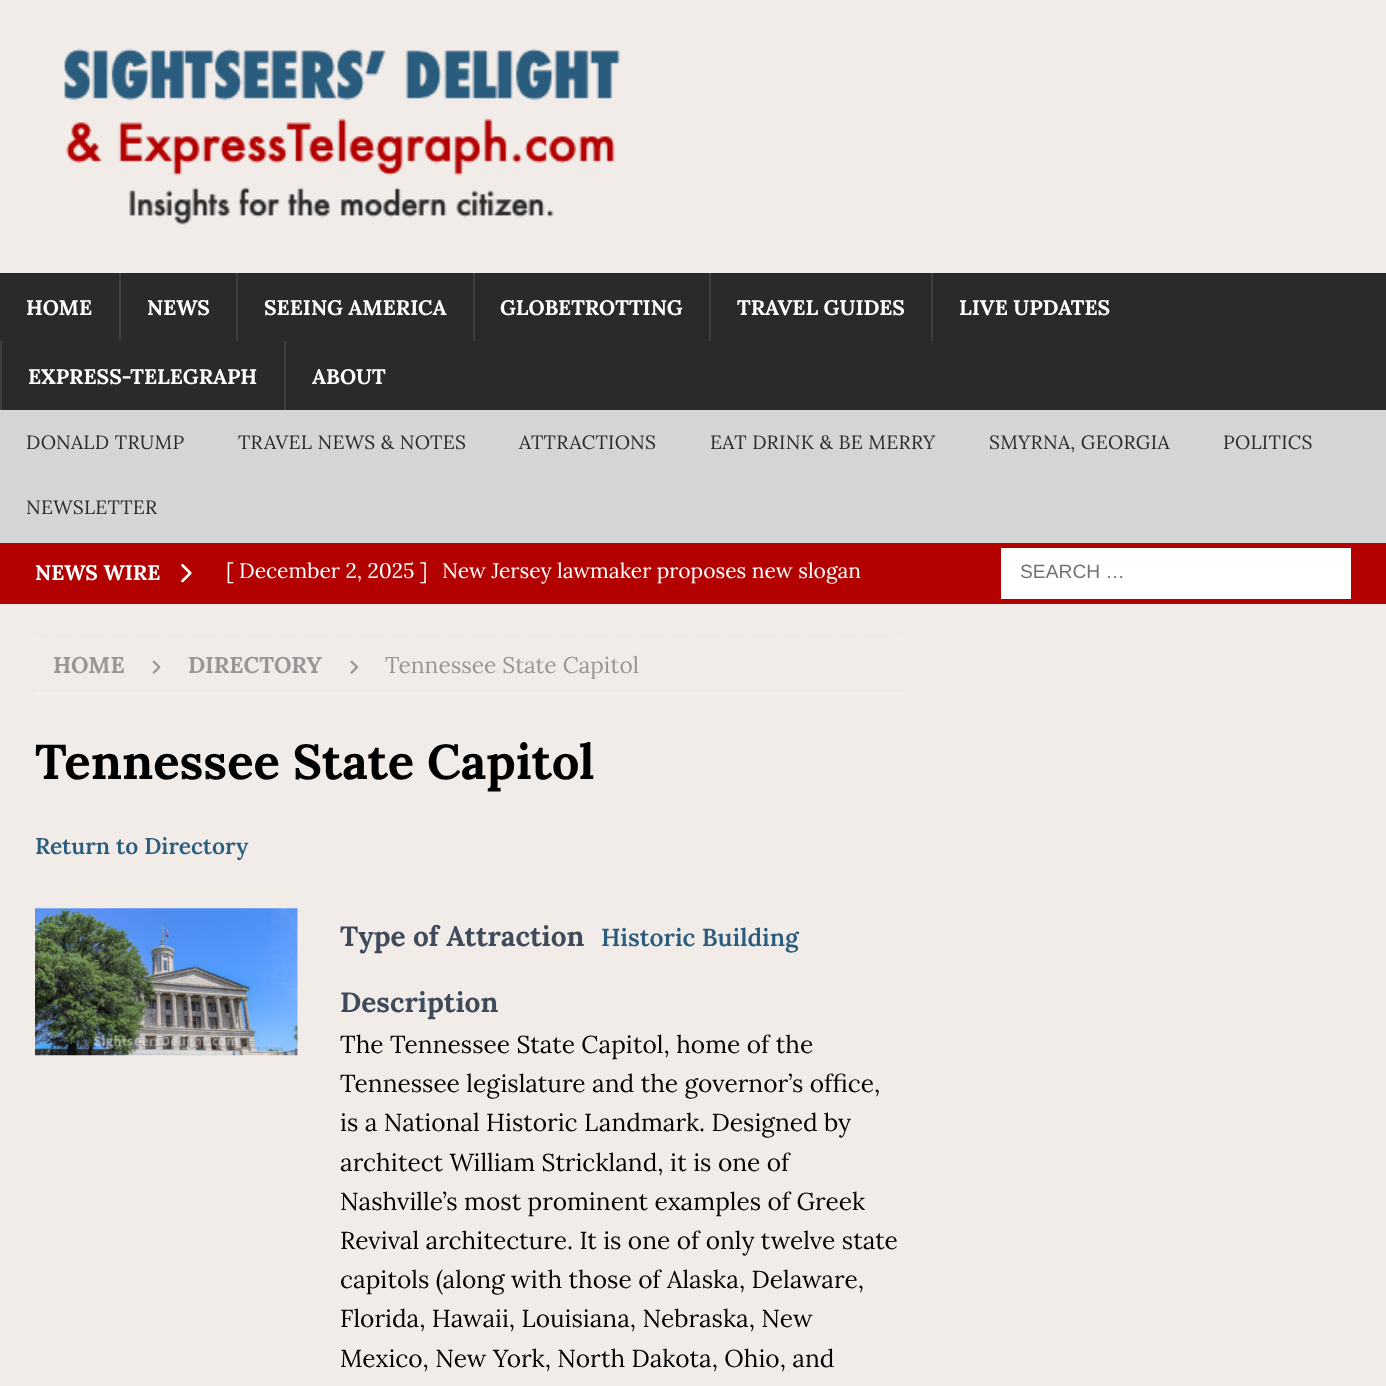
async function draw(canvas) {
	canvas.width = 1386;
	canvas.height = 1386;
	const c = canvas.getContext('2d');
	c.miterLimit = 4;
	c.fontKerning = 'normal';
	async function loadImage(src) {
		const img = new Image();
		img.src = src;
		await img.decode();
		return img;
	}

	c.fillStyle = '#f2ece9';
	c.fillRect(0, 0, 1386, 1386);
	c.drawImage(await loadImage('img1.png'), 64, 48, 556, 177);
	c.fillStyle = '#2a2a2a';
	c.fillRect(0, 273, 1386, 137);
	c.font = 'bold 21px Lora';
	c.fillStyle = '#fff';
	c.fillText('HOME', 26, 315);
	c.fillStyle = '#3f3f3f';
	c.fillRect(119, 273, 2, 68);
	c.fillStyle = '#fff';
	c.fillText('NEWS', 147, 315);
	c.fillStyle = '#3f3f3f';
	c.fillRect(236, 273, 2, 68);
	c.fillStyle = '#fff';
	c.fillText('SEEING AMERICA', 264, 315);
	c.fillStyle = '#3f3f3f';
	c.fillRect(473, 273, 2, 68);
	c.fillStyle = '#fff';
	c.fillText('GLOBETROTTING', 500, 315);
	c.fillStyle = '#3f3f3f';
	c.fillRect(709, 273, 2, 68);
	c.fillStyle = '#fff';
	c.fillText('TRAVEL GUIDES', 737, 315);
	c.fillStyle = '#3f3f3f';
	c.fillRect(931, 273, 2, 68);
	c.fillStyle = '#fff';
	c.fillText('LIVE UPDATES', 959, 315);
	c.fillStyle = '#3f3f3f';
	c.fillRect(0, 341, 2, 69);
	c.fillStyle = '#fff';
	c.fillText('EXPRESS-TELEGRAPH', 28, 384);
	c.fillStyle = '#3f3f3f';
	c.fillRect(284, 341, 2, 69);
	c.fillStyle = '#fff';
	c.fillText('ABOUT', 312, 384);
	c.fillStyle = '#d5d5d5';
	c.fillRect(0, 410, 1386, 133);
	c.letterSpacing = '0.3px';
	c.font = '19.25px Lora';
	c.fillStyle = '#2a2a2a';
	for (const [text, x, y] of [
		['DONALD TRUMP', 26, 449],
		['TRAVEL NEWS & NOTES', 238, 449],
		['ATTRACTIONS', 519, 449],
		['EAT DRINK & BE MERRY', 710, 449],
		['SMYRNA, GEORGIA', 989, 449],
		['POLITICS', 1223, 449],
		['NEWSLETTER', 26, 514],
	]) {
		c.fillText(text, x, y);
	}
	c.fillStyle = '#b30000';
	c.fillRect(0, 543, 1386, 61);
	c.letterSpacing = '0px';
	c.font = 'bold 21px Lora';
	c.fillStyle = '#fff';
	c.fillText('NEWS WIRE', 35, 580);
	c.drawImage(await loadImage('img2.png'), 181, 563, 11, 20);
	c.font = '21px Lora';
	c.fillText('[ December 2, 2025 ]', 226, 578);
	c.fillText('New Jersey lawmaker proposes new slogan', 442, 578);
	c.fillRect(1001, 548, 350, 51);
	c.font = '19.25px Liberation Sans';
	c.fillStyle = '#757575';
	c.fillText('SEARCH …', 1020, 578);
	c.save();
	c.beginPath();
	c.rect(35, 639, 866, 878);
	c.clip();
	c.beginPath();
	c.moveTo(35, 639.5);
	c.lineTo(901, 639.5);
	c.strokeStyle = '#f6f2f0';
	c.lineWidth = 1.8;
	c.setLineDash([1.75, 1.75]);
	c.stroke();
	c.restore();
	c.beginPath();
	c.moveTo(35, 694);
	c.lineTo(901, 694);
	c.strokeStyle = '#f6f2f0';
	c.lineWidth = 1.8;
	c.setLineDash([1.75, 1.75]);
	c.stroke();
	c.font = 'bold 22.75px Lora';
	c.fillStyle = '#979797';
	c.fillText('HOME', 53, 673);
	c.drawImage(await loadImage('img3.png'), 152, 660, 9, 14);
	c.fillText('DIRECTORY', 188, 673);
	c.drawImage(await loadImage('img4.png'), 350, 660, 8, 14);
	c.font = '22.75px Lora';
	c.fillText('Tennessee State Capitol', 385, 673);
	c.font = 'bold 49px Lora';
	c.fillStyle = '#000';
	c.fillText('Tennessee State Capitol', 35, 779);
	c.font = '600 22.75px Lora';
	c.fillStyle = '#295c7d';
	c.fillText('Return to Directory', 35, 854);
	c.drawImage(await loadImage('img5.png'), 35, 908, 263, 148);
	c.font = 'bold 28px Lora';
	c.fillStyle = '#3f4b5b';
	c.fillText('Type of Attraction', 340, 946);
	c.font = '600 24.5px Lora';
	c.fillStyle = '#295c7d';
	c.fillText('Historic Building', 601, 946);
	c.font = 'bold 28px Lora';
	c.fillStyle = '#3f4b5b';
	c.fillText('Description', 340, 1012);
	c.font = '24.5px Lora';
	c.fillStyle = '#000';
	for (const [text, x, y] of [
		['The Tennessee State Capitol, home of the', 340, 1053],
		['Tennessee legislature and the governor’s office,', 340, 1092],
		['is a National Historic Landmark. Designed by', 340, 1131],
		['architect William Strickland, it is one of', 340, 1171],
		['Nashville’s most prominent examples of Greek', 340, 1210],
		['Revival architecture. It is one of only twelve state', 340, 1249],
		['capitols (along with those of Alaska, Delaware,', 340, 1288],
		['Florida, Hawaii, Louisiana, Nebraska, New', 340, 1327],
		['Mexico, New York, North Dakota, Ohio, and', 340, 1367],
	]) {
		c.fillText(text, x, y);
	}
}

draw(document.querySelector('canvas'));
